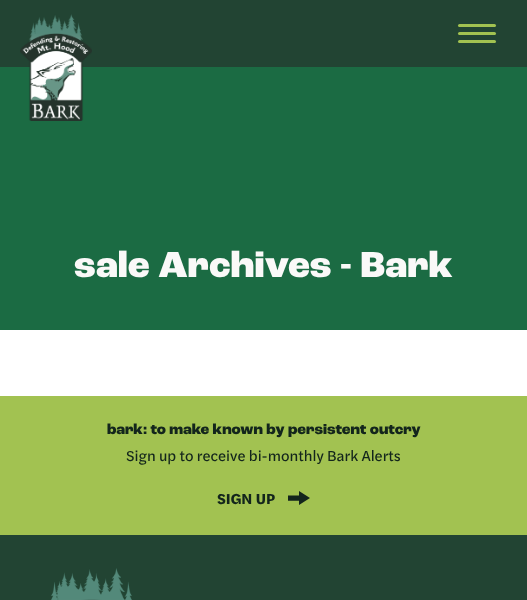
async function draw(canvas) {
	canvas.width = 527;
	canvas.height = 600;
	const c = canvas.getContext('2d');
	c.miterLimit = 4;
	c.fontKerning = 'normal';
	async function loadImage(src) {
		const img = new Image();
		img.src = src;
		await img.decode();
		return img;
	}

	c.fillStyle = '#fff';
	c.fillRect(0, 0, 527, 600);
	c.fillStyle = '#243';
	c.fillRect(0, 0, 527, 67);
	c.fillStyle = '#1b6b43';
	c.fillRect(0, 67, 527, 263);
	c.drawImage(await loadImage('img1.png'), 20, 14, 72, 107);
	c.fillStyle = '#a2c251';
	c.beginPath();
	c.roundRect(458, 24, 38, 3, 1.5);
	c.fill();
	c.beginPath();
	c.roundRect(458, 32, 38, 3, 1.5);
	c.fill();
	c.beginPath();
	c.roundRect(458, 40, 38, 3, 1.5);
	c.fill();
	c.font = '800 38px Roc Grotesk';
	c.fillStyle = '#faf9f8';
	c.fillText('sale Archives - Bark', 74, 277);
	c.fillStyle = '#a2c251';
	c.fillRect(0, 396, 527, 139);
	c.font = '800 15px Roc Grotesk';
	c.fillStyle = '#13251c';
	c.fillText('bark: to make known by persistent outcry', 107, 434);
	c.font = '15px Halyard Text';
	c.fillText('Sign up to receive bi-monthly Bark Alerts', 126, 461);
	c.font = 'bold 15px Halyard Text';
	c.fillText('SIGN UP', 217, 504);
	c.drawImage(await loadImage('img2.png'), 288, 491, 22, 14);
	c.fillStyle = '#243';
	c.fillRect(0, 535, 527, 65);
	c.drawImage(await loadImage('img3.png'), 51, 568, 81, 32);
}

draw(document.querySelector('canvas'));
